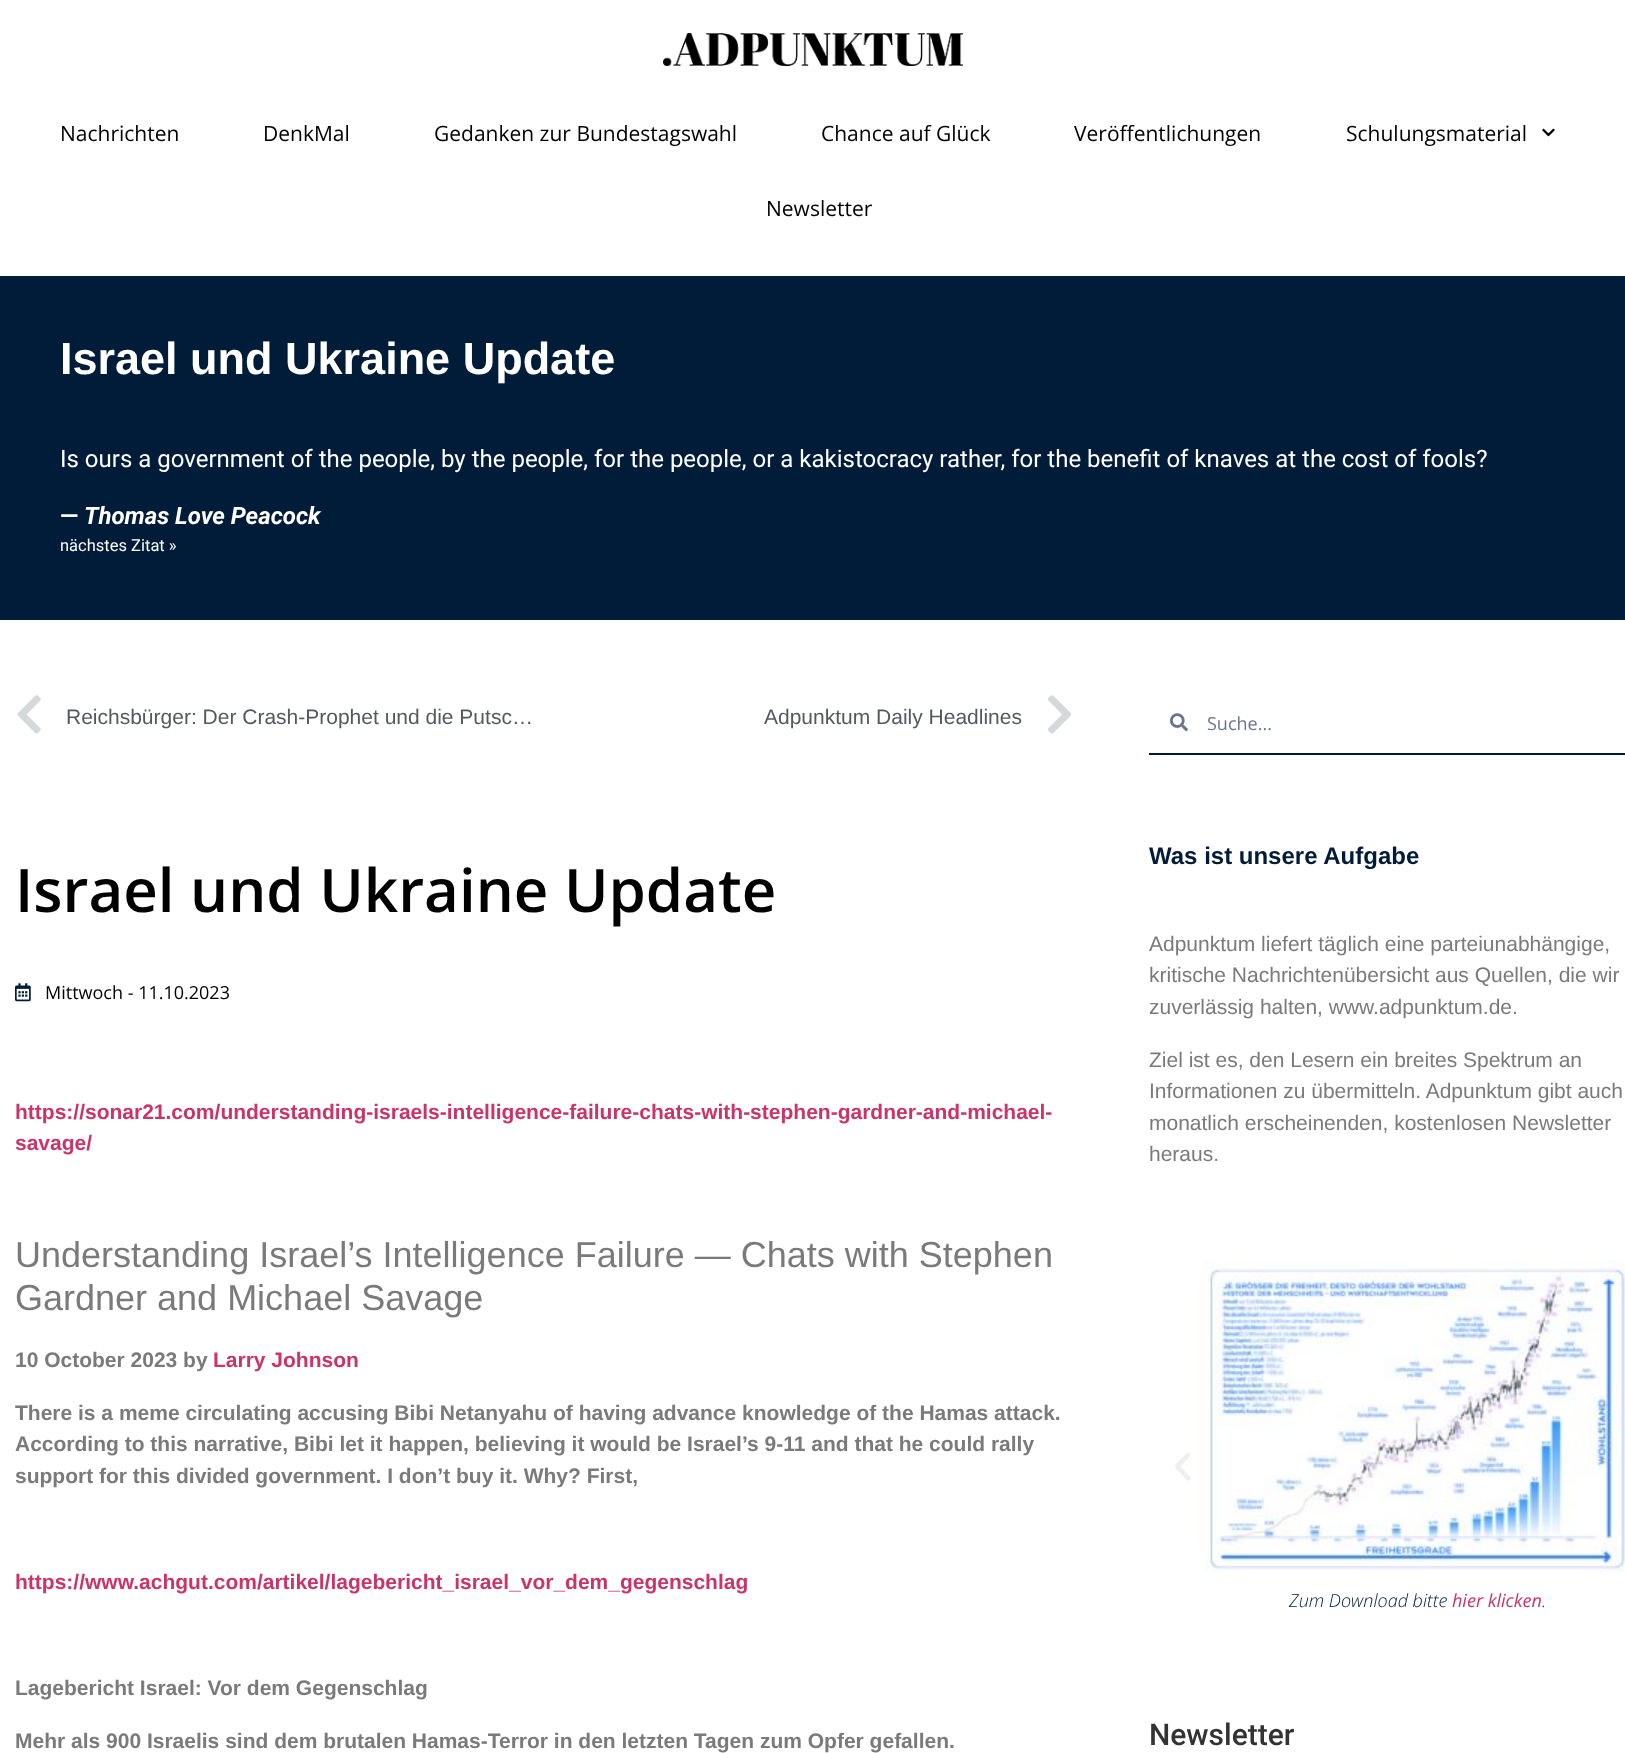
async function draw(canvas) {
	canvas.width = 1625;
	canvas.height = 1753;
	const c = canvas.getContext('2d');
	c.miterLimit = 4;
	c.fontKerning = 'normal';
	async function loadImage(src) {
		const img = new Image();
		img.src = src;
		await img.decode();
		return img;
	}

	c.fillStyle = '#fff';
	c.fillRect(0, 0, 1625, 1753);
	c.drawImage(await loadImage('img1.png'), 663, 33, 300, 33);
	c.font = '21px Open Sans';
	c.fillStyle = '#000';
	for (const [text, x, y] of [
		['Nachrichten', 60, 141],
		['DenkMal', 263, 141],
		['Gedanken zur Bundestagswahl', 434, 141],
		['Chance auf Glück', 821, 141],
		['Veröffentlichungen', 1074, 141],
		['Schulungsmaterial', 1346, 141],
	]) {
		c.fillText(text, x, y);
	}
	c.drawImage(await loadImage('img2.png'), 1542, 128, 13, 9);
	c.fillText('Newsletter', 766, 216);
	c.fillStyle = '#001c38';
	c.fillRect(0, 276, 1625, 344);
	c.font = 'bold 45px Liberation Sans';
	c.fillStyle = '#fff';
	c.fillText('Israel und Ukraine Update', 60, 374);
	c.font = '24px Roboto';
	c.fillText('Is ours a government of the people, by the people, for the people, or a kakistocracy rather, for the benefit of knaves at the cost of fools?', 60, 467);
	c.font = 'bold 24px Roboto';
	c.fillText('—', 60, 524);
	c.font = 'italic bold 24px Roboto';
	c.fillText('Thomas Love Peacock', 84, 524);
	c.font = '16.5px Roboto';
	c.fillText('nächstes Zitat »', 60, 551);
	c.drawImage(await loadImage('img3.png'), 17, 695, 24, 39);
	c.font = '21px Liberation Sans';
	c.fillStyle = '#54595f';
	c.fillText('Reichsbürger: Der Crash-Prophet und die Putsc…', 66, 724);
	c.fillText('Adpunktum Daily Headlines', 764, 724);
	c.drawImage(await loadImage('img4.png'), 1048, 695, 24, 39);
	c.font = '600 60px Open Sans';
	c.fillStyle = '#000';
	c.fillText('Israel und Ukraine Update', 15, 912);
	c.drawImage(await loadImage('img5.png'), 15, 983, 16, 19);
	c.font = '18px Open Sans';
	c.fillText('Mittwoch - 11.10.2023', 45, 999);
	c.font = 'bold 21px Liberation Sans';
	c.fillStyle = '#c36';
	c.fillText('https://sonar21.com/understanding-israels-intelligence-failure-chats-with-stephen-gardner-and-michael-', 15, 1119);
	c.fillText('savage/', 15, 1150);
	c.font = '36px Liberation Sans';
	c.fillStyle = '#7a7a7a';
	c.fillText('Understanding Israel’s Intelligence Failure — Chats with Stephen', 15, 1267);
	c.fillText('Gardner and Michael Savage', 15, 1310);
	c.font = 'bold 21px Liberation Sans';
	c.fillText('10 October 2023 by', 15, 1367);
	c.fillStyle = '#c36';
	c.fillText('Larry Johnson', 213, 1367);
	c.fillStyle = '#7a7a7a';
	for (const [text, x, y] of [
		['There is a meme circulating accusing Bibi Netanyahu of having advance knowledge of the Hamas attack.', 15, 1420],
		['According to this narrative, Bibi let it happen, believing it would be Israel’s 9-11 and that he could rally', 15, 1451],
		['support for this divided government. I don’t buy it. Why? First,', 15, 1483],
	]) {
		c.fillText(text, x, y);
	}
	c.fillStyle = '#c36';
	c.fillText('https://www.achgut.com/artikel/lagebericht_israel_vor_dem_gegenschlag', 15, 1589);
	c.fillStyle = '#7a7a7a';
	c.fillText('Lagebericht Israel: Vor dem Gegenschlag', 15, 1695);
	c.fillText('Mehr als 900 Israelis sind dem brutalen Hamas-Terror in den letzten Tagen zum Opfer gefallen.', 15, 1748);
	c.fillStyle = '#031641';
	c.fillRect(1149, 753, 476, 2);
	c.drawImage(await loadImage('img6.png'), 1170, 713, 18, 19);
	c.font = '18px Open Sans';
	c.fillStyle = '#68738d';
	c.fillText('Suche...', 1207, 730);
	c.font = 'bold 24px Liberation Sans';
	c.fillStyle = '#001c38';
	c.fillText('Was ist unsere Aufgabe', 1149, 864);
	c.font = '21px Liberation Sans';
	c.fillStyle = '#7a7a7a';
	for (const [text, x, y] of [
		['Adpunktum liefert täglich eine parteiunabhängige,', 1149, 951],
		['kritische Nachrichtenübersicht aus Quellen, die wir', 1149, 982],
		['zuverlässig halten, www.adpunktum.de.', 1149, 1014],
		['Ziel ist es, den Lesern ein breites Spektrum an', 1149, 1067],
		['Informationen zu übermitteln. Adpunktum gibt auch', 1149, 1098],
		['monatlich erscheinenden, kostenlosen Newsletter', 1149, 1130],
		['heraus.', 1149, 1161],
	]) {
		c.fillText(text, x, y);
	}
	c.drawImage(await loadImage('img7.png'), 1175, 1452, 16, 29);
	c.drawImage(await loadImage('img8.png'), 1198, 1260, 427, 313);
	c.font = 'italic 300 18px Open Sans';
	c.fillStyle = '#001c38';
	c.fillText('Zum Download bitte', 1289, 1607);
	c.font = 'italic 18px Open Sans';
	c.fillStyle = '#c36';
	c.fillText('hier klicken', 1452, 1607);
	c.font = 'italic 300 18px Open Sans';
	c.fillStyle = '#001c38';
	c.fillText('.', 1542, 1607);
	c.font = '500 30px Roboto';
	c.fillStyle = '#333';
	c.fillText('Newsletter', 1149, 1745);
}

draw(document.querySelector('canvas'));
